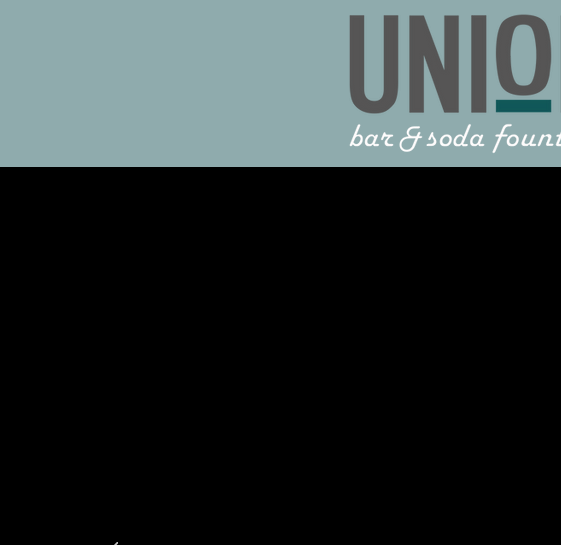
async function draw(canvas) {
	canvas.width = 561;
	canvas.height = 545;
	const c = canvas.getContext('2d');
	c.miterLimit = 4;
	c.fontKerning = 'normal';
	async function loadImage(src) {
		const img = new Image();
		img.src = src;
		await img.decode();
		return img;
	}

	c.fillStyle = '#8fabad';
	c.fillRect(0, 0, 561, 545);
	c.drawImage(await loadImage('img1.png'), 349, 14, 212, 140);
	c.fillStyle = '#000';
	c.fillRect(0, 167, 561, 378);
	c.drawImage(await loadImage('img2.png'), 114, 542, 4, 3);
}

draw(document.querySelector('canvas'));
